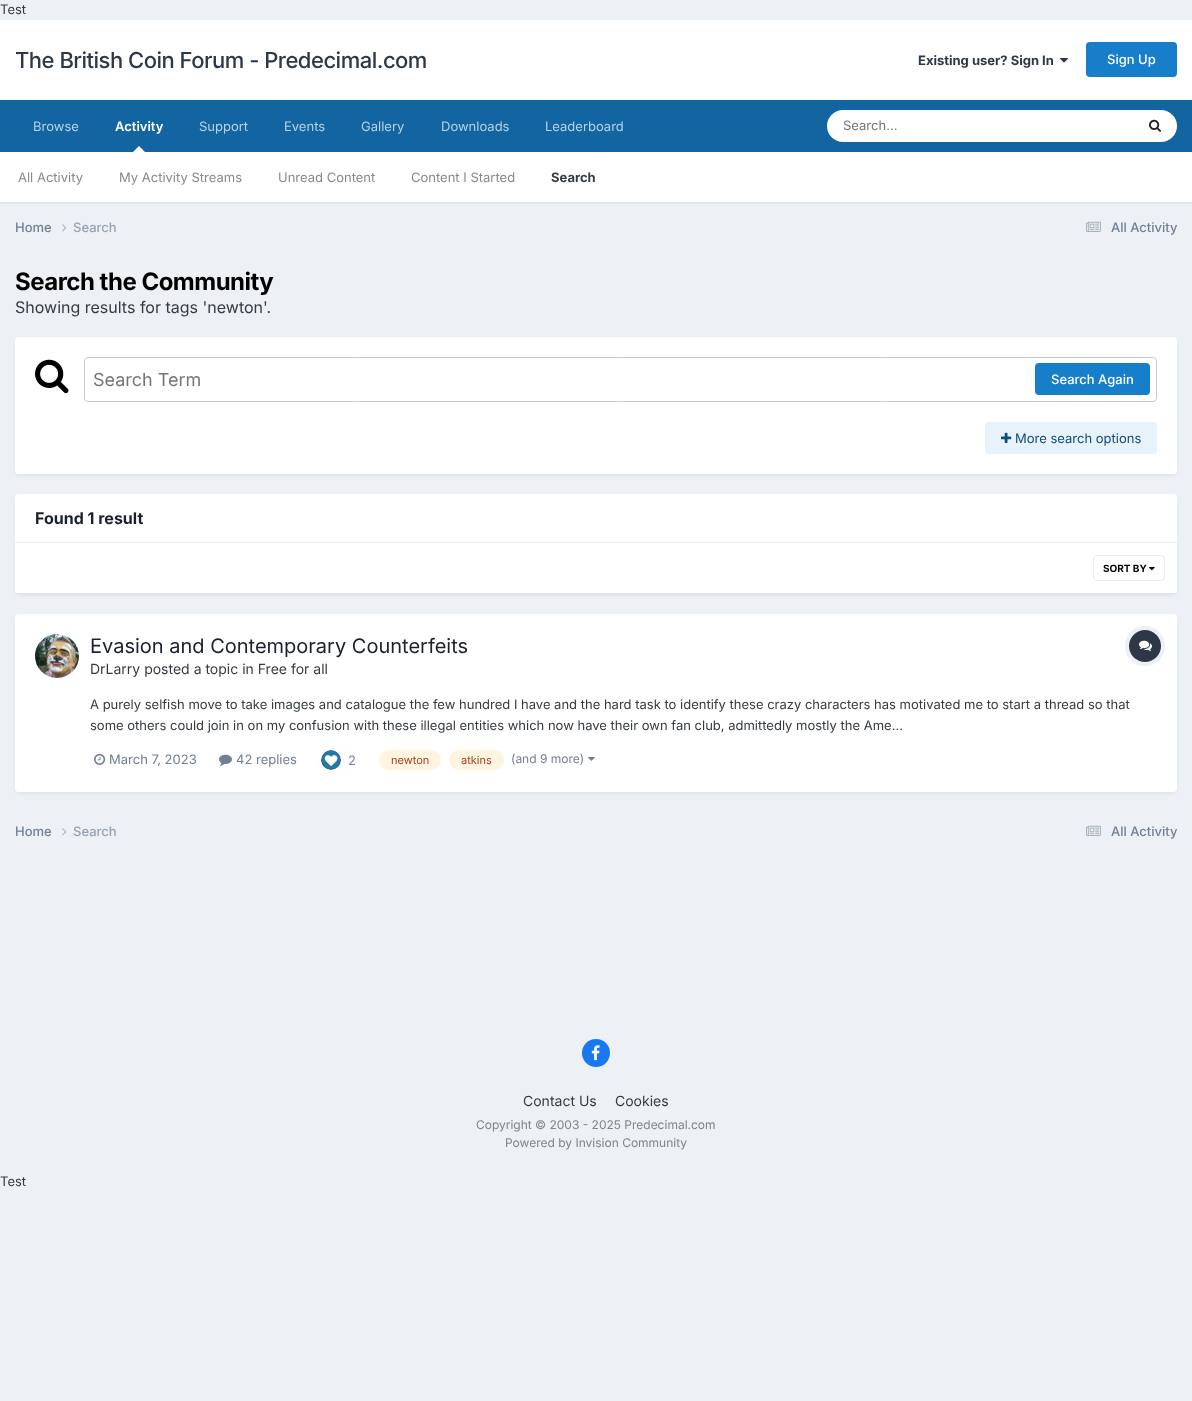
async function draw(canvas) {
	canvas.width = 1192;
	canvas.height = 1401;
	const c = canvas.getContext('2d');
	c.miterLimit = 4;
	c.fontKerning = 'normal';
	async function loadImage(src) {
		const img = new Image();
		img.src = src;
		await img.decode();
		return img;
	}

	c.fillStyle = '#edf0f4';
	c.fillRect(0, 0, 1192, 1401);
	c.font = '13px Inter';
	c.fillStyle = '#353c41';
	c.fillText('Test', 0, 14);
	c.fillStyle = '#fff';
	c.fillRect(0, 20, 1192, 80);
	c.letterSpacing = '-0.5px';
	c.font = '500 22px Inter';
	c.fillStyle = '#2d3748';
	c.fillText('The British Coin Forum - Predecimal.com', 15, 68);
	c.letterSpacing = '0px';
	c.font = 'bold 13px Inter';
	c.fillText('Existing user? Sign In', 918, 65);
	c.drawImage(await loadImage('img1.png'), 1060, 58, 8, 5);
	c.fillStyle = '#177ec9';
	c.beginPath();
	c.roundRect(1086, 42, 91, 35, 4);
	c.fill();
	c.font = '500 13px Inter';
	c.fillStyle = '#fff';
	c.fillText('Sign Up', 1107, 64);
	c.fillStyle = '#1265a1';
	c.fillRect(0, 100, 1192, 52);
	c.font = '600 13px Inter';
	c.fillStyle = '#fff';
	c.fillText('Activity', 115, 131);
	c.fillStyle = '#0000001a';
	c.filter = 'blur(1px)';
	c.beginPath();
	c.rect(0, 153, 1192, 50);
	c.fill();
	c.filter = 'none';
	c.fillStyle = '#fff';
	c.beginPath();
	c.moveTo(145, 152);
	c.lineTo(133, 152);
	c.lineTo(139, 146);
	c.closePath();
	c.fill();
	c.fillRect(0, 152, 1192, 50);
	c.font = '13px Inter';
	c.fillStyle = '#868a8d';
	for (const [text, x, y] of [
		['All Activity', 18, 182],
		['My Activity Streams', 119, 182],
		['Unread Content', 278, 182],
		['Content I Started', 411, 182],
	]) {
		c.fillText(text, x, y);
	}
	c.font = 'bold 13px Inter';
	c.fillStyle = '#353c41';
	c.fillText('Search', 551, 182);
	c.font = '13px Inter';
	c.fillStyle = '#b8d1e3';
	for (const [text, x, y] of [
		['Browse', 33, 131],
		['Support', 199, 131],
		['Events', 284, 131],
		['Gallery', 361, 131],
		['Downloads', 441, 131],
		['Leaderboard', 545, 131],
	]) {
		c.fillText(text, x, y);
	}
	c.fillStyle = '#fff';
	c.beginPath();
	c.roundRect(827, 110, 350, 32, 16);
	c.fill();
	c.fillStyle = '#757575';
	c.fillText('Search...', 843, 130);
	c.drawImage(await loadImage('img2.png'), 1149, 119, 12, 13);
	c.font = '500 13px Inter';
	c.fillStyle = '#718096';
	c.fillText('Home', 15, 232);
	c.drawImage(await loadImage('img3.png'), 62, 224, 5, 8);
	c.fillStyle = '#96a2b2';
	c.fillText('Search', 73, 232);
	c.drawImage(await loadImage('img4.png'), 1086, 221, 15, 11);
	c.fillStyle = '#718096';
	c.fillText('All Activity', 1111, 232);
	c.letterSpacing = '-0.5px';
	c.font = 'bold 24px Inter';
	c.fillStyle = '#000';
	c.fillText('Search the Community', 15, 290);
	c.letterSpacing = '0px';
	c.font = '16px Inter';
	c.fillStyle = '#353c41';
	c.fillText('Showing results for tags \'newton\'.', 15, 313);
	c.fillStyle = '#2d37481a';
	c.filter = 'blur(2px)';
	c.beginPath();
	c.roundRect(16, 340, 1160, 135, 3);
	c.fill();
	c.filter = 'none';
	c.fillStyle = '#fff';
	c.beginPath();
	c.roundRect(15, 337, 1162, 137, 4);
	c.fill();
	c.drawImage(await loadImage('img5.png'), 35, 359, 34, 35);
	c.beginPath();
	c.roundRect(84.5, 357.5, 1072, 44, 3.5);
	c.strokeStyle = '#c6ccd5';
	c.stroke();
	c.font = '18px Inter';
	c.fillStyle = '#757575';
	c.fillText('Search Term', 93, 386);
	c.fillStyle = '#177ec9';
	c.beginPath();
	c.roundRect(1035, 363, 115, 32, 4);
	c.fill();
	c.font = '500 13px Inter';
	c.fillStyle = '#fff';
	c.fillText('Search Again', 1051, 384);
	c.fillStyle = '#e8f2fa';
	c.beginPath();
	c.roundRect(985, 422, 172, 32, 4);
	c.fill();
	c.drawImage(await loadImage('img6.png'), 1001, 432, 11, 11);
	c.font = '13px Inter';
	c.fillStyle = '#0e4c79';
	c.fillText('More search options', 1015, 443);
	c.fillStyle = '#2d37481a';
	c.filter = 'blur(2px)';
	c.beginPath();
	c.roundRect(16, 497, 1160, 98, 3);
	c.fill();
	c.filter = 'none';
	c.fillStyle = '#fff';
	c.beginPath();
	c.roundRect(15, 494, 1162, 49, [4, 4, 0, 0]);
	c.fill();
	c.fillStyle = '#eaecef';
	c.fillRect(15, 542, 1162, 1);
	c.font = 'bold 16px Inter';
	c.fillStyle = '#1a202c';
	c.fillText('Found 1 result', 35, 524);
	c.fillStyle = '#fff';
	c.fillRect(15, 543, 1162, 50);
	c.fillStyle = '#e1e2e3';
	c.fillRect(15, 593, 1162, 1);
	c.drawImage(await loadImage('img7.png'), 1149, 567, 6, 4);
	c.beginPath();
	c.roundRect(1093.5, 555.5, 71, 25, 3.5);
	c.strokeStyle = '#ebecec';
	c.stroke();
	c.font = 'bold 10px Inter';
	c.fillStyle = '#000';
	c.fillText('SORT BY', 1103, 572);
	c.fillStyle = '#2d37481a';
	c.filter = 'blur(2px)';
	c.beginPath();
	c.roundRect(16, 617, 1160, 176, 3);
	c.fill();
	c.filter = 'none';
	c.fillStyle = '#fff';
	c.beginPath();
	c.roundRect(15, 614, 1162, 178, 4);
	c.fill();
	c.drawImage(await loadImage('img8.png'), 35, 634, 44, 44);
	c.font = '20px Inter';
	c.fillStyle = '#1a202c';
	c.fillText('Evasion and Contemporary Counterfeits', 90, 653);
	c.font = '14px Inter';
	c.fillStyle = '#353c41';
	c.fillText('DrLarry posted a topic in Free for all', 90, 674);
	c.beginPath();
	c.arc(1145, 646, 18, 0, 2 * Math.PI);
	c.strokeStyle = '#edf0f4';
	c.lineWidth = 4;
	c.stroke();
	c.fillStyle = '#2d3748';
	c.beginPath();
	c.arc(1145, 646, 16, 0, 2 * Math.PI);
	c.fill();
	c.drawImage(await loadImage('img9.png'), 1139, 640, 13, 11);
	c.font = '13px Inter';
	c.fillStyle = '#353c41';
	c.fillText('A purely selfish move to take images and catalogue the few hundred I have and the hard task to identify these crazy characters has motivated me to start a thread so that', 90, 709);
	c.fillText('some others could join in on my confusion with these illegal entities which now have their own fan club, admittedly mostly the Ame...', 90, 730);
	c.drawImage(await loadImage('img10.png'), 94, 753, 12, 12);
	c.fillStyle = '#718096';
	c.fillText('March 7, 2023', 109, 764);
	c.drawImage(await loadImage('img11.png'), 219, 754, 13, 12);
	c.fillText('42 replies', 236, 764);
	c.drawImage(await loadImage('img12.png'), 321, 750, 20, 20);
	c.fillText('2', 348, 765);
	c.fillStyle = '#fff4df';
	c.beginPath();
	c.roundRect(379, 750, 62, 20, 10);
	c.fill();
	c.font = '11px Inter';
	c.fillStyle = '#9c4221';
	c.fillText('newton', 391, 764);
	c.fillStyle = '#fff4df';
	c.beginPath();
	c.roundRect(449, 750, 55, 20, 10);
	c.fill();
	c.fillStyle = '#9c4221';
	c.fillText('atkins', 461, 764);
	c.font = '12px Inter';
	c.fillStyle = '#718096';
	c.fillText('(and 9 more)', 511, 763);
	c.drawImage(await loadImage('img13.png'), 588, 757, 7, 4);
	c.font = '500 13px Inter';
	c.fillText('Home', 15, 836);
	c.drawImage(await loadImage('img3.png'), 62, 828, 5, 8);
	c.fillStyle = '#96a2b2';
	c.fillText('Search', 73, 836);
	c.drawImage(await loadImage('img4.png'), 1086, 825, 15, 11);
	c.fillStyle = '#718096';
	c.fillText('All Activity', 1111, 836);
	c.fillStyle = '#1778f2';
	c.beginPath();
	c.arc(596, 1053, 14, 0, 2 * Math.PI);
	c.fill();
	c.drawImage(await loadImage('img14.png'), 591, 1045, 9, 16);
	c.font = '14px Inter';
	c.fillStyle = '#353c41';
	c.fillText('Contact Us', 523, 1106);
	c.fillText('Cookies', 615, 1106);
	c.font = '12px Inter';
	c.fillStyle = '#7f8489';
	c.fillText('Copyright © 2003 - 2025 Predecimal.com', 476, 1129);
	c.fillText('Powered by Invision Community', 505, 1147);
	c.font = '13px Inter';
	c.fillStyle = '#353c41';
	c.fillText('Test', 0, 1186);
}

draw(document.querySelector('canvas'));
